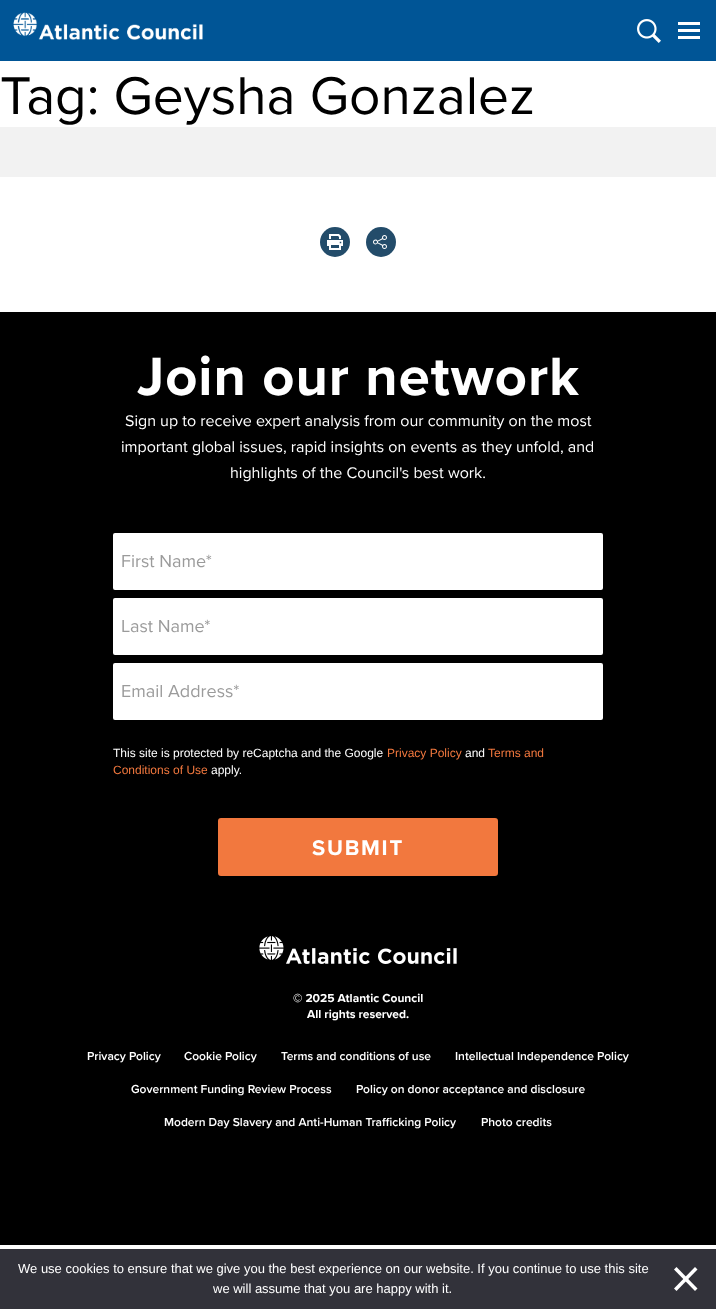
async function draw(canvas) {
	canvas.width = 716;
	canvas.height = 1309;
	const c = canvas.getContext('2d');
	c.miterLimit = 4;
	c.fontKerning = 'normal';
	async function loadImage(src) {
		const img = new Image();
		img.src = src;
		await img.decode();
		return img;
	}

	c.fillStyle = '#fff';
	c.fillRect(0, 0, 716, 1309);
	c.fillStyle = '#005596';
	c.fillRect(0, 0, 716, 61);
	c.drawImage(await loadImage('img1.png'), 13, 12, 190, 28);
	c.drawImage(await loadImage('img2.png'), 637, 19, 24, 24);
	for (const [x, y, w, h, color] of [
		[678, 22, 22, 3, '#fff'],
		[678, 29, 22, 3, '#fff'],
		[678, 36, 22, 3, '#fff'],
	]) {
		c.fillStyle = color;
		c.fillRect(x, y, w, h);
	}
	c.font = '55px Proxima Nova';
	c.fillStyle = '#000';
	c.fillText('Tag: Geysha Gonzalez', 0, 114);
	c.fillStyle = '#f2f2f2';
	c.fillRect(0, 127, 716, 50);
	c.fillStyle = '#234c6a';
	c.beginPath();
	c.arc(335, 242, 15, 0, 2 * Math.PI);
	c.fill();
	c.drawImage(await loadImage('img3.png'), 327, 234, 16, 16);
	c.beginPath();
	c.arc(381, 242, 15, 0, 2 * Math.PI);
	c.fill();
	c.drawImage(await loadImage('img4.png'), 373, 235, 14, 14);
	c.fillStyle = '#000';
	c.fillRect(0, 312, 716, 933);
	c.letterSpacing = '1px';
	c.font = 'bold 56px Proxima Nova';
	c.fillStyle = '#fff';
	c.fillText('Join our network', 137, 395);
	c.letterSpacing = '0px';
	c.font = '16px Proxima Nova';
	for (const [text, x, y] of [
		['Sign up to receive expert analysis from our community on the most', 125, 426],
		['important global issues, rapid insights on events as they unfold, and', 121, 452],
		['highlights of the Council\'s best work.', 230, 478],
	]) {
		c.fillText(text, x, y);
	}
	c.beginPath();
	c.roundRect(113, 533, 490, 57, 2);
	c.fill();
	c.font = '18px Proxima Nova';
	c.fillStyle = '#9b9b9b';
	c.fillText('First Name*', 121, 567);
	c.fillStyle = '#fff';
	c.beginPath();
	c.roundRect(113, 598, 490, 57, 2);
	c.fill();
	c.fillStyle = '#9b9b9b';
	c.fillText('Last Name*', 121, 632);
	c.fillStyle = '#fff';
	c.beginPath();
	c.roundRect(113, 663, 490, 57, 2);
	c.fill();
	c.fillStyle = '#9b9b9b';
	c.fillText('Email Address*', 121, 697);
	c.font = '12px Liberation Sans';
	c.fillStyle = '#fff';
	c.fillText('This site is protected by reCaptcha and the Google', 113, 757);
	c.fillStyle = '#f2783e';
	c.fillText('Privacy Policy', 387, 757);
	c.fillStyle = '#fff';
	c.fillText('and', 465, 757);
	c.fillStyle = '#f2783e';
	c.fillText('Terms and', 488, 757);
	c.fillText('Conditions of Use', 113, 774);
	c.fillStyle = '#fff';
	c.fillText('apply.', 211, 774);
	c.fillStyle = '#f2783e';
	c.beginPath();
	c.roundRect(219, 819, 278, 56, 2);
	c.fill();
	c.strokeStyle = '#f2783e';
	c.lineWidth = 2;
	c.stroke();
	c.letterSpacing = '1.75px';
	c.font = 'bold 22px Proxima Nova';
	c.fillStyle = '#fff';
	c.fillText('SUBMIT', 312, 855);
	c.drawImage(await loadImage('img5.png'), 259, 936, 198, 28);
	c.letterSpacing = '0px';
	c.font = 'bold 12px Proxima Nova';
	c.fillText('© 2025 Atlantic Council', 293, 1002);
	c.fillText('All rights reserved.', 307, 1018);
	c.font = '600 12px Proxima Nova';
	for (const [text, x, y] of [
		['Privacy Policy', 87, 1060],
		['Cookie Policy', 184, 1060],
		['Terms and conditions of use', 281, 1060],
		['Intellectual Independence Policy', 455, 1060],
		['Government Funding Review Process', 131, 1093],
		['Policy on donor acceptance and disclosure', 356, 1093],
		['Modern Day Slavery and Anti-Human Trafficking Policy', 164, 1126],
		['Photo credits', 481, 1126],
	]) {
		c.fillText(text, x, y);
	}
	c.fillStyle = '#32323a';
	c.fillRect(0, 1249, 716, 60);
	c.font = '13px Liberation Sans';
	c.fillStyle = '#fff';
	c.fillText('We use cookies to ensure that we give you the best experience on our website. If you continue to use this site', 18, 1273);
	c.fillText('we will assume that you are happy with it.', 213, 1293);
	c.beginPath();
	c.moveTo(695, 1267);
	c.lineTo(697.5, 1269.5);
	c.lineTo(676.5, 1291);
	c.lineTo(674, 1288.5);
	c.closePath();
	c.fill();
	c.beginPath();
	c.moveTo(674, 1269.5);
	c.lineTo(676.5, 1267);
	c.lineTo(697.5, 1288.5);
	c.lineTo(695, 1291);
	c.closePath();
	c.fill();
}

draw(document.querySelector('canvas'));
